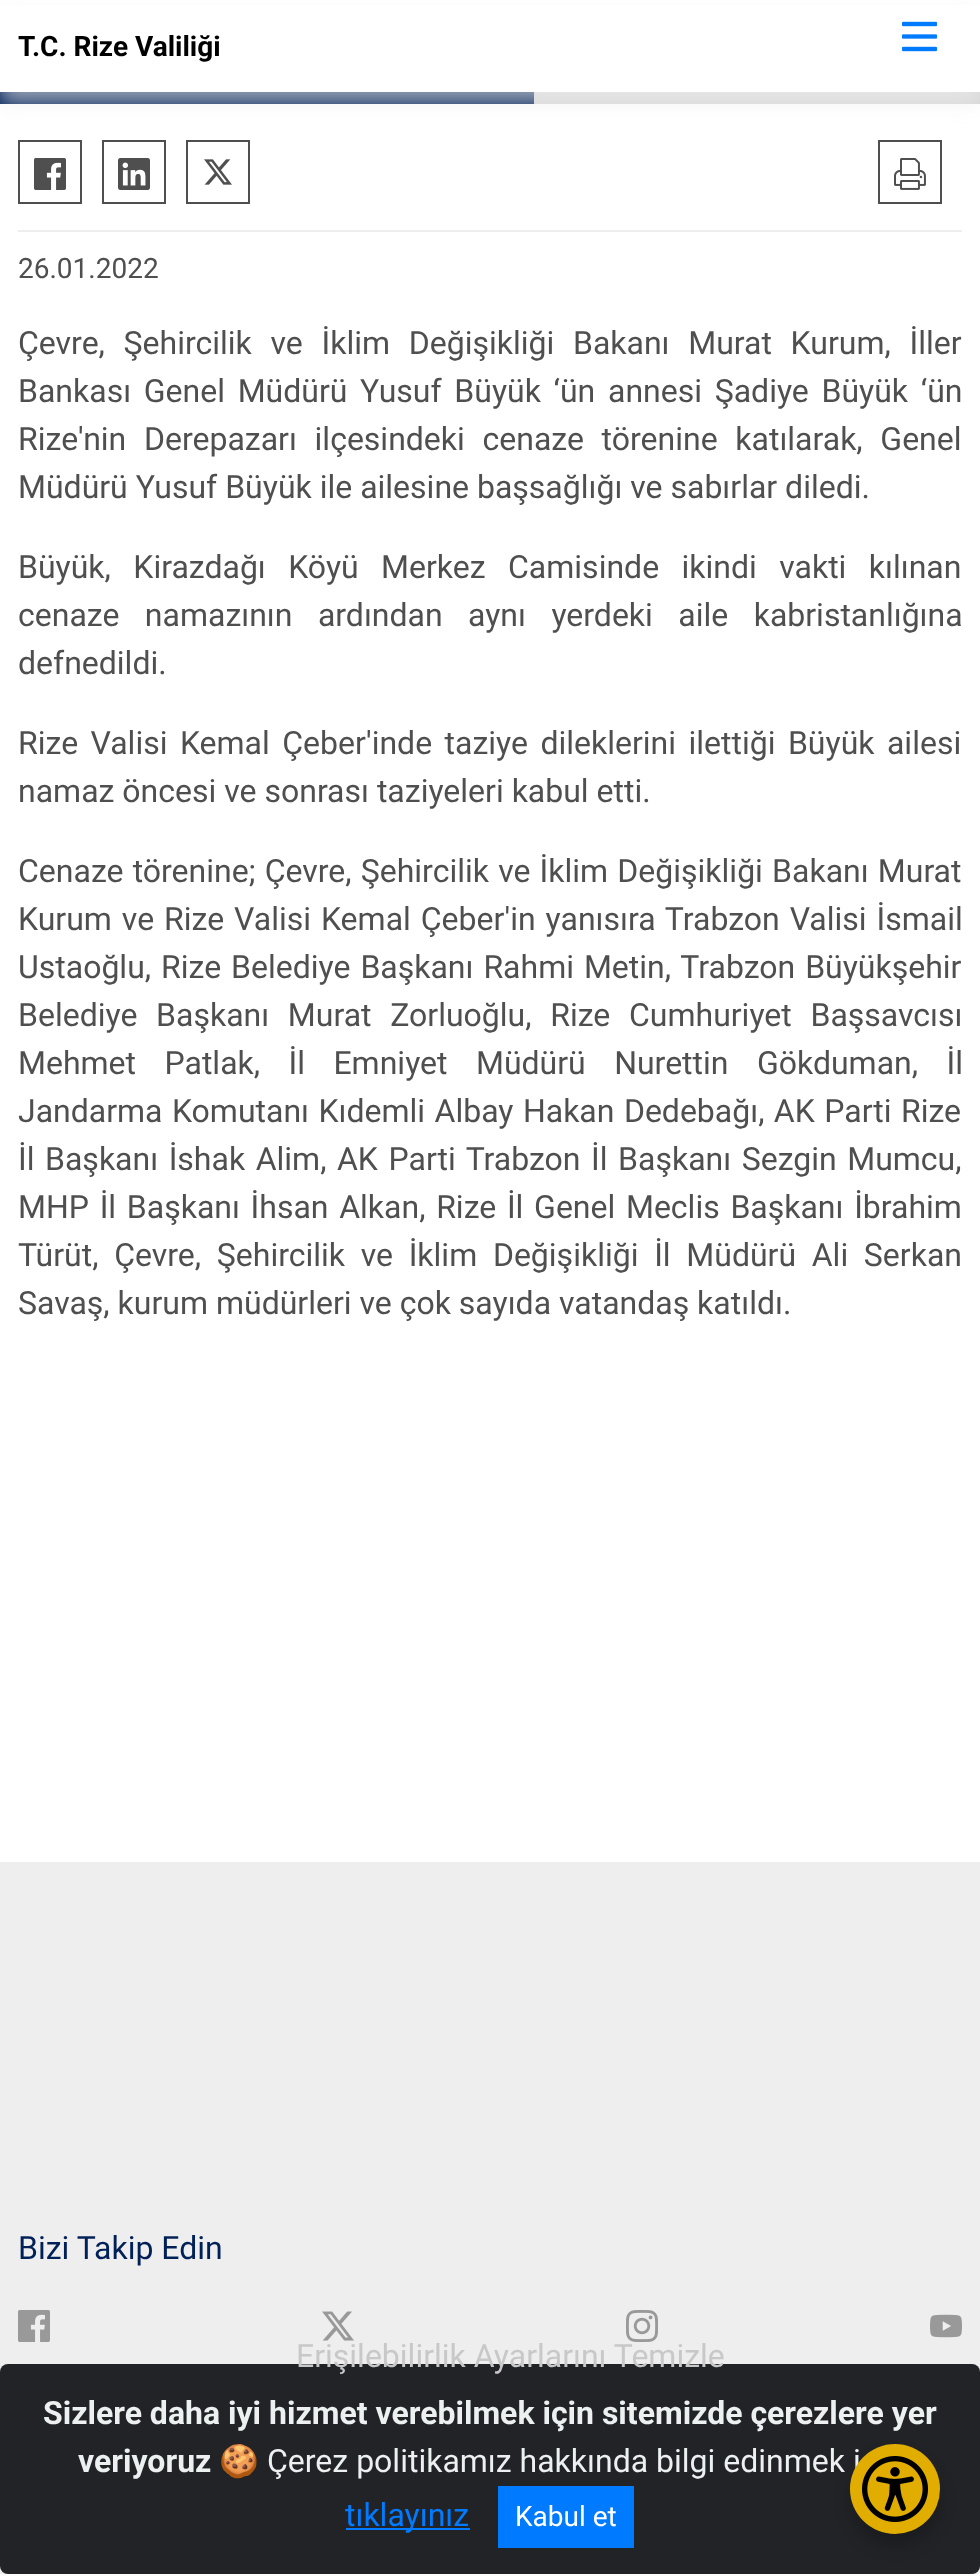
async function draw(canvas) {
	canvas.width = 980;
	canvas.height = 2574;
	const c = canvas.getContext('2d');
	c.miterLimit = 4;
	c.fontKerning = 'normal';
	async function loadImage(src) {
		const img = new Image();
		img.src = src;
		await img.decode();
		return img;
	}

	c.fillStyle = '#fff';
	c.fillRect(0, 0, 980, 2574);
	c.fillStyle = '#d7d7d7';
	c.fillRect(534, 92, 446, 12);
	c.fillStyle = '#002158';
	c.fillRect(0, 92, 534, 12);
	c.fillStyle = '#eeeeee9e';
	c.filter = 'blur(10px)';
	c.beginPath();
	c.rect(0, 12, 980, 92);
	c.fill();
	c.filter = 'none';
	c.fillStyle = '#fff';
	c.fillRect(0, 5, 980, 87);
	c.font = 'bold 28px Roboto';
	c.fillStyle = '#000';
	c.fillText('T.C. Rize Valiliği', 18, 56);
	c.drawImage(await loadImage('img1.png'), 902, 21, 35, 31);
	c.fillStyle = '#eee';
	c.fillRect(18, 230, 944, 2);
	c.strokeStyle = '#4f4f4f';
	c.lineWidth = 2;
	c.strokeRect(19, 141, 62, 62);
	c.drawImage(await loadImage('img2.png'), 34, 158, 32, 32);
	c.strokeRect(103, 141, 62, 62);
	c.drawImage(await loadImage('img3.png'), 118, 158, 32, 32);
	c.strokeRect(187, 141, 62, 62);
	c.drawImage(await loadImage('img4.png'), 204, 159, 28, 26);
	c.strokeRect(879, 141, 62, 62);
	c.drawImage(await loadImage('img5.png'), 894, 158, 32, 32);
	c.font = '28px Roboto';
	c.fillStyle = '#4f4f4f';
	c.fillText('26.01.2022', 18, 278);
	c.wordSpacing = '10.75px';
	c.font = '32px Roboto';
	c.fillText('Çevre, Şehircilik ve İklim Değişikliği Bakanı Murat Kurum, İller', 18, 354);
	c.wordSpacing = '4.75px';
	c.fillText('Bankası Genel Müdürü Yusuf Büyük ‘ün annesi Şadiye Büyük ‘ün', 18, 402);
	c.wordSpacing = '9.75px';
	c.fillText('Rize\'nin Derepazarı ilçesindeki cenaze törenine katılarak, Genel', 18, 450);
	c.wordSpacing = '0px';
	c.fillText('Müdürü Yusuf Büyük ile ailesine başsağlığı ve sabırlar diledi.', 18, 498);
	c.wordSpacing = '14.5px';
	c.fillText('Büyük, Kirazdağı Köyü Merkez Camisinde ikindi vakti kılınan', 18, 578);
	c.wordSpacing = '17.5px';
	c.fillText('cenaze namazının ardından aynı yerdeki aile kabristanlığına', 18, 626);
	c.wordSpacing = '0px';
	c.fillText('defnedildi.', 18, 674);
	c.wordSpacing = '4.5px';
	c.fillText('Rize Valisi Kemal Çeber\'inde taziye dileklerini ilettiği Büyük ailesi', 18, 754);
	c.wordSpacing = '0px';
	c.fillText('namaz öncesi ve sonrası taziyeleri kabul etti.', 18, 802);
	c.wordSpacing = '1.25px';
	c.fillText('Cenaze törenine; Çevre, Şehircilik ve İklim Değişikliği Bakanı Murat', 18, 882);
	c.wordSpacing = '2px';
	c.fillText('Kurum ve Rize Valisi Kemal Çeber\'in yanısıra Trabzon Valisi İsmail', 18, 930);
	c.fillText('Ustaoğlu, Rize Belediye Başkanı Rahmi Metin, Trabzon Büyükşehir', 18, 978);
	c.wordSpacing = '10.75px';
	c.fillText('Belediye Başkanı Murat Zorluoğlu, Rize Cumhuriyet Başsavcısı', 18, 1026);
	c.wordSpacing = '20.5px';
	c.fillText('Mehmet Patlak, İl Emniyet Müdürü Nurettin Gökduman, İl', 18, 1074);
	c.wordSpacing = '1.5px';
	c.fillText('Jandarma Komutanı Kıdemli Albay Hakan Dedebağı, AK Parti Rize', 18, 1122);
	c.wordSpacing = '2.6px';
	c.fillText('İl Başkanı İshak Alim, AK Parti Trabzon İl Başkanı Sezgin Mumcu,', 18, 1170);
	c.wordSpacing = '2.75px';
	c.fillText('MHP İl Başkanı İhsan Alkan, Rize İl Genel Meclis Başkanı İbrahim', 18, 1218);
	c.wordSpacing = '7.75px';
	c.fillText('Türüt, Çevre, Şehircilik ve İklim Değişikliği İl Müdürü Ali Serkan', 18, 1266);
	c.wordSpacing = '0px';
	c.fillText('Savaş, kurum müdürleri ve çok sayıda vatandaş katıldı.', 18, 1314);
	c.fillStyle = '#eee';
	c.fillRect(0, 1862, 980, 712);
	c.fillStyle = '#002158';
	c.fillText('Bizi Takip Edin', 18, 2259);
	c.drawImage(await loadImage('img6.png'), 18, 2310, 32, 32);
	c.drawImage(await loadImage('img7.png'), 322, 2311, 32, 30);
	c.drawImage(await loadImage('img8.png'), 626, 2310, 32, 32);
	c.drawImage(await loadImage('img9.png'), 930, 2314, 32, 24);
	c.fillStyle = '#212327';
	c.beginPath();
	c.roundRect(0, 2364, 980, 210, 8);
	c.fill();
	c.fillStyle = '#c8c8c9';
	c.fillText('Erişilebilirlik Ayarlarını Temizle', 296, 2367);
	c.fillStyle = '#00000033';
	c.filter = 'blur(8px)';
	c.beginPath();
	c.roundRect(850, 2456, 90, 90, 45);
	c.fill();
	c.filter = 'none';
	c.fillStyle = '#ecf0f1';
	c.fillText('Çerez politikamız hakkında bilgi edinmek i', 267, 2472);
	c.fillStyle = '#e1ad01';
	c.beginPath();
	c.arc(895, 2489, 45, 0, 2 * Math.PI);
	c.fill();
	c.drawImage(await loadImage('img10.png'), 862, 2456, 66, 66);
	c.font = 'bold 32px Roboto';
	c.fillStyle = '#ecf0f1';
	c.fillText('Sizlere daha iyi hizmet verebilmek için sitemizde çerezlere yer', 43, 2424);
	c.fillText('veriyoruz', 78, 2472);
	c.font = '32px Noto Color Emoji';
	c.fillText('🍪', 219, 2472);
	c.fillStyle = '#007bff';
	c.fillRect(346, 2528, 124, 2);
	c.font = '32px Roboto';
	c.fillText('tıklayınız', 345, 2526);
	c.fillRect(498, 2486, 136, 62);
	c.font = '28px Roboto';
	c.fillStyle = '#fff';
	c.fillText('Kabul et', 515, 2526);
}

draw(document.querySelector('canvas'));
